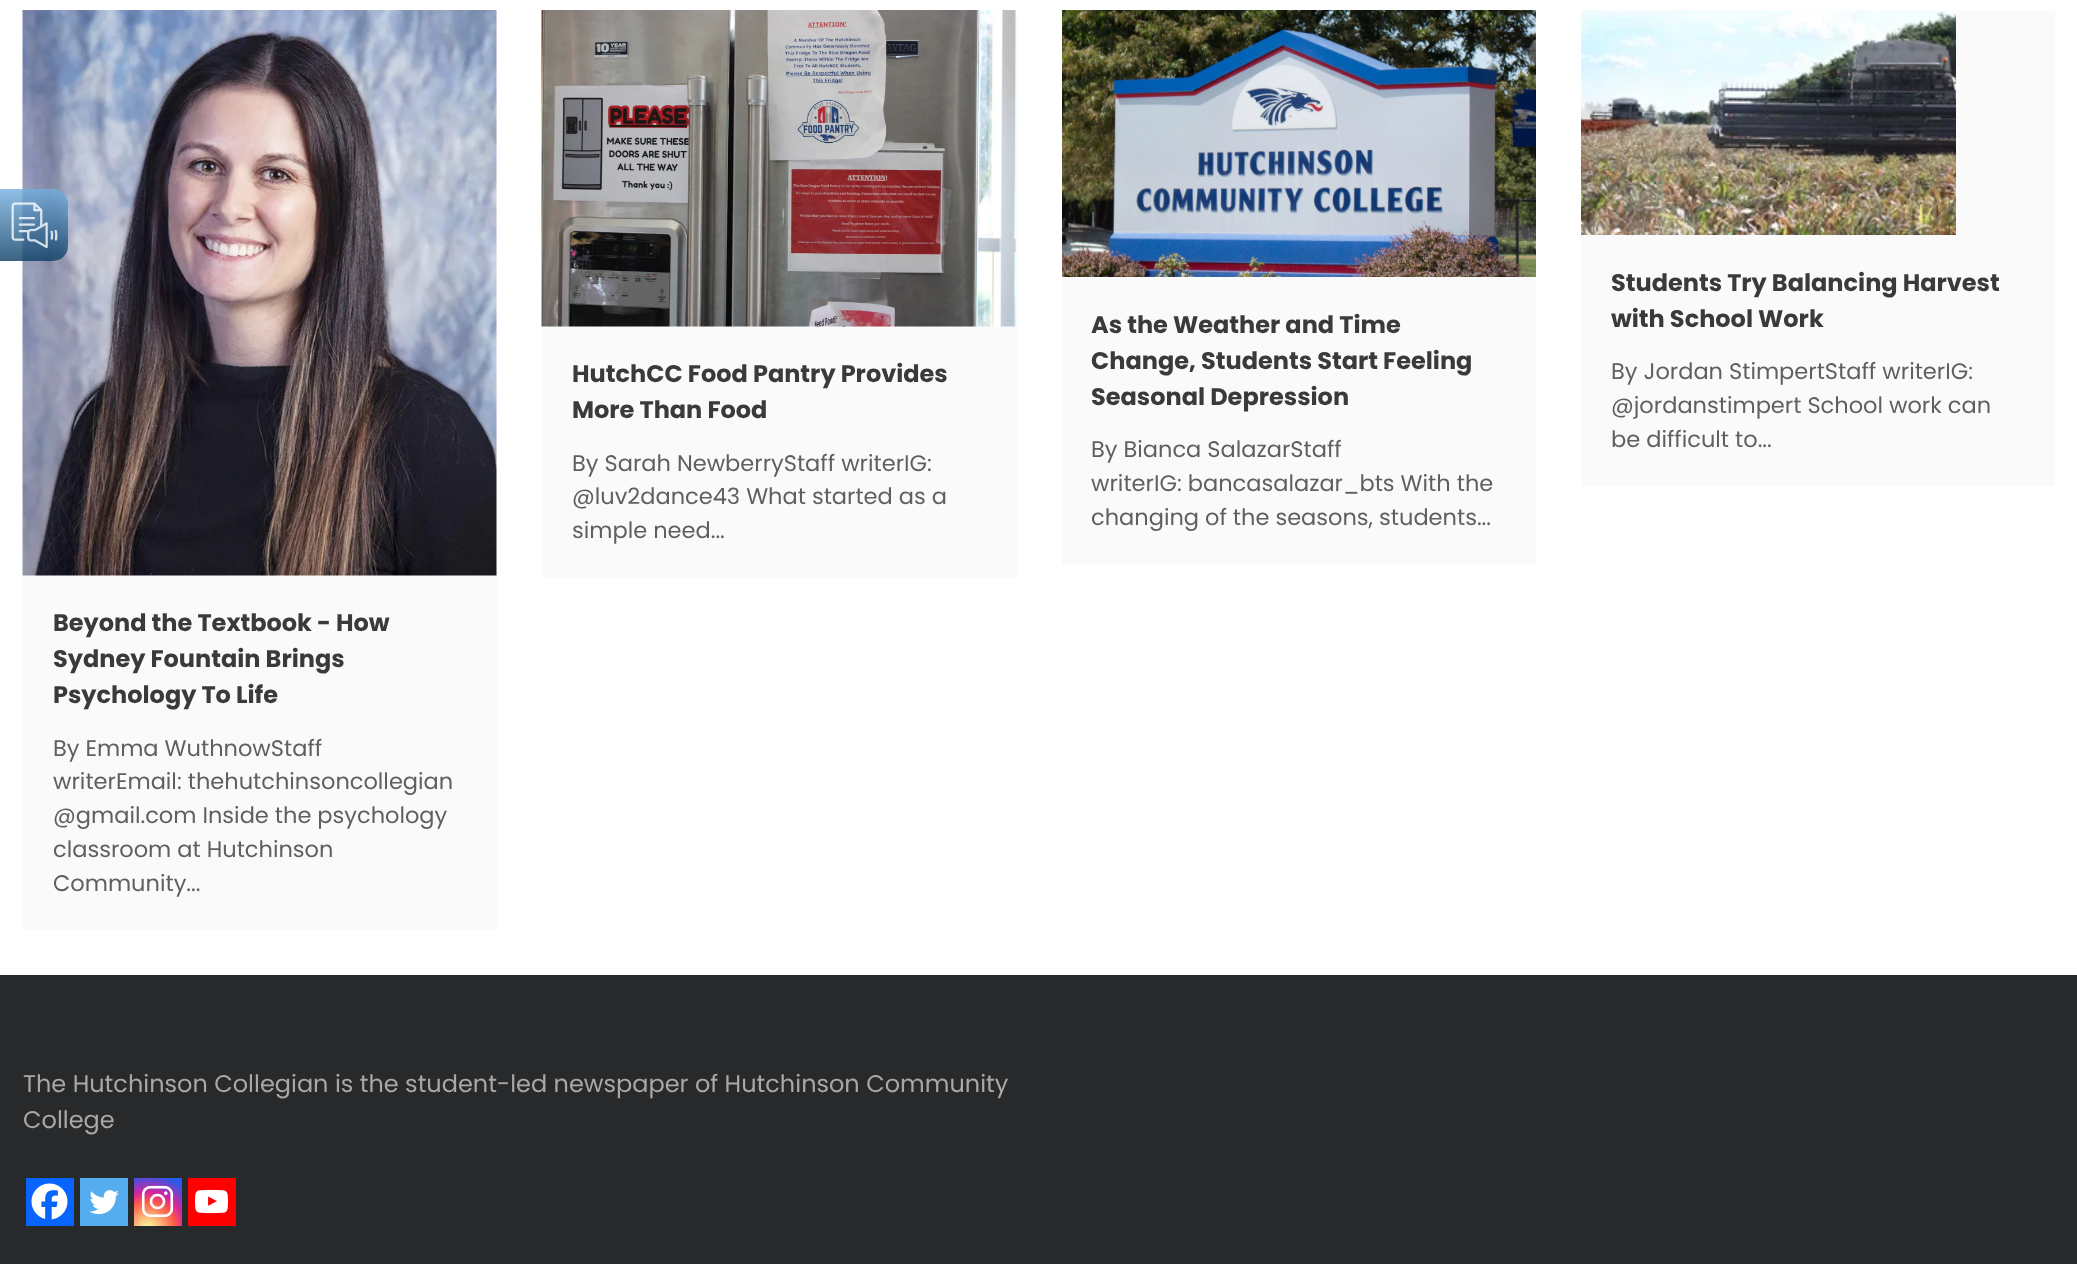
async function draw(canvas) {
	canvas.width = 2077;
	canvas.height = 1264;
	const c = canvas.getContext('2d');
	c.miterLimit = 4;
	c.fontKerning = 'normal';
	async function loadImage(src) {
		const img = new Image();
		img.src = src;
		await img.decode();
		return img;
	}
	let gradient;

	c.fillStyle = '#fff';
	c.fillRect(0, 0, 2077, 1264);
	c.fillStyle = '#fafafa';
	c.fillRect(23, 11, 474, 919);
	c.drawImage(await loadImage('img5.png'), 22, 10, 475, 566);
	gradient = c.createLinearGradient(34, 189, 34, 261);
	gradient.addColorStop(0, '#73afe0cc');
	gradient.addColorStop(1, '#0b3c63cc');
	c.fillStyle = gradient;
	c.beginPath();
	c.roundRect(0, 189, 68, 72, [0, 15, 15, 0]);
	c.fill();
	c.drawImage(await loadImage('img1.png'), 11, 202, 47, 47);
	c.fillStyle = '#fafafa';
	c.fillRect(542, 11, 475, 567);
	c.drawImage(await loadImage('img2.png'), 541, 10, 475, 317);
	c.font = 'bold 24px Poppins';
	c.fillStyle = '#3a3a3a';
	c.fillText('HutchCC Food Pantry Provides', 572, 382);
	c.fillText('More Than Food', 572, 418);
	c.font = '22.5px Poppins';
	c.fillStyle = '#5f5f5f';
	for (const [text, x, y] of [
		['By Sarah NewberryStaff writerIG:', 572, 471],
		['@luv2dance43 What started as a', 572, 504],
		['simple need...', 572, 538],
	]) {
		c.fillText(text, x, y);
	}
	c.fillStyle = '#fafafa';
	c.fillRect(1062, 277, 474, 287);
	c.drawImage(await loadImage('img3.png'), 1062, 10, 474, 267);
	c.font = 'bold 24px Poppins';
	c.fillStyle = '#3a3a3a';
	for (const [text, x, y] of [
		['As the Weather and Time', 1091, 333],
		['Change, Students Start Feeling', 1091, 369],
		['Seasonal Depression', 1091, 405],
	]) {
		c.fillText(text, x, y);
	}
	c.font = '22.5px Poppins';
	c.fillStyle = '#5f5f5f';
	for (const [text, x, y] of [
		['By Bianca SalazarStaff', 1091, 457],
		['writerIG: bancasalazar_bts With the', 1091, 491],
		['changing of the seasons, students...', 1091, 525],
	]) {
		c.fillText(text, x, y);
	}
	c.fillStyle = '#fafafa';
	c.fillRect(1581, 11, 474, 475);
	c.drawImage(await loadImage('img4.png'), 1581, 10, 375, 225);
	c.font = 'bold 24px Poppins';
	c.fillStyle = '#3a3a3a';
	c.fillText('Students Try Balancing Harvest', 1611, 291);
	c.fillText('with School Work', 1611, 327);
	c.font = '22.5px Poppins';
	c.fillStyle = '#5f5f5f';
	for (const [text, x, y] of [
		['By Jordan StimpertStaff writerIG:', 1611, 379],
		['@jordanstimpert School work can', 1611, 413],
		['be difficult to...', 1611, 447],
	]) {
		c.fillText(text, x, y);
	}
	c.font = 'bold 24px Poppins';
	c.fillStyle = '#3a3a3a';
	for (const [text, x, y] of [
		['Beyond the Textbook - How', 53, 631],
		['Sydney Fountain Brings', 53, 667],
		['Psychology To Life', 53, 703],
	]) {
		c.fillText(text, x, y);
	}
	c.font = '22.5px Poppins';
	c.fillStyle = '#5f5f5f';
	for (const [text, x, y] of [
		['By Emma WuthnowStaff', 53, 756],
		['writerEmail: thehutchinsoncollegian', 53, 789],
		['@gmail.com Inside the psychology', 53, 823],
		['classroom at Hutchinson', 53, 857],
		['Community...', 53, 891],
	]) {
		c.fillText(text, x, y);
	}
	c.fillStyle = '#28292a';
	c.fillRect(0, 975, 2077, 289);
	c.font = '24px Poppins';
	c.fillStyle = '#a8a8a8';
	c.fillText('The Hutchinson Collegian is the student-led newspaper of Hutchinson Community', 23, 1092);
	c.fillText('College', 23, 1128);
	c.fillStyle = '#0765fe';
	c.fillRect(26, 1178, 48, 48);
	c.drawImage(await loadImage('img6.png'), 31, 1183, 37, 37);
	c.fillStyle = '#55acee';
	c.fillRect(80, 1178, 48, 48);
	c.drawImage(await loadImage('img7.png'), 89, 1190, 30, 25);
	gradient = c.createRadialGradient(148, 1229, 0, 148, 1229, 61);
	gradient.addColorStop(0, '#fdf497');
	gradient.addColorStop(0.05, '#fdf497');
	gradient.addColorStop(0.45, '#fd5949');
	gradient.addColorStop(0.6, '#d6249f');
	gradient.addColorStop(0.9, '#285aeb');
	c.fillStyle = gradient;
	c.fillRect(134, 1178, 48, 48);
	c.drawImage(await loadImage('img8.png'), 141, 1185, 33, 33);
	c.fillStyle = '#f00';
	c.fillRect(188, 1178, 48, 48);
	c.drawImage(await loadImage('img9.png'), 195, 1189, 33, 25);
}

draw(document.querySelector('canvas'));
